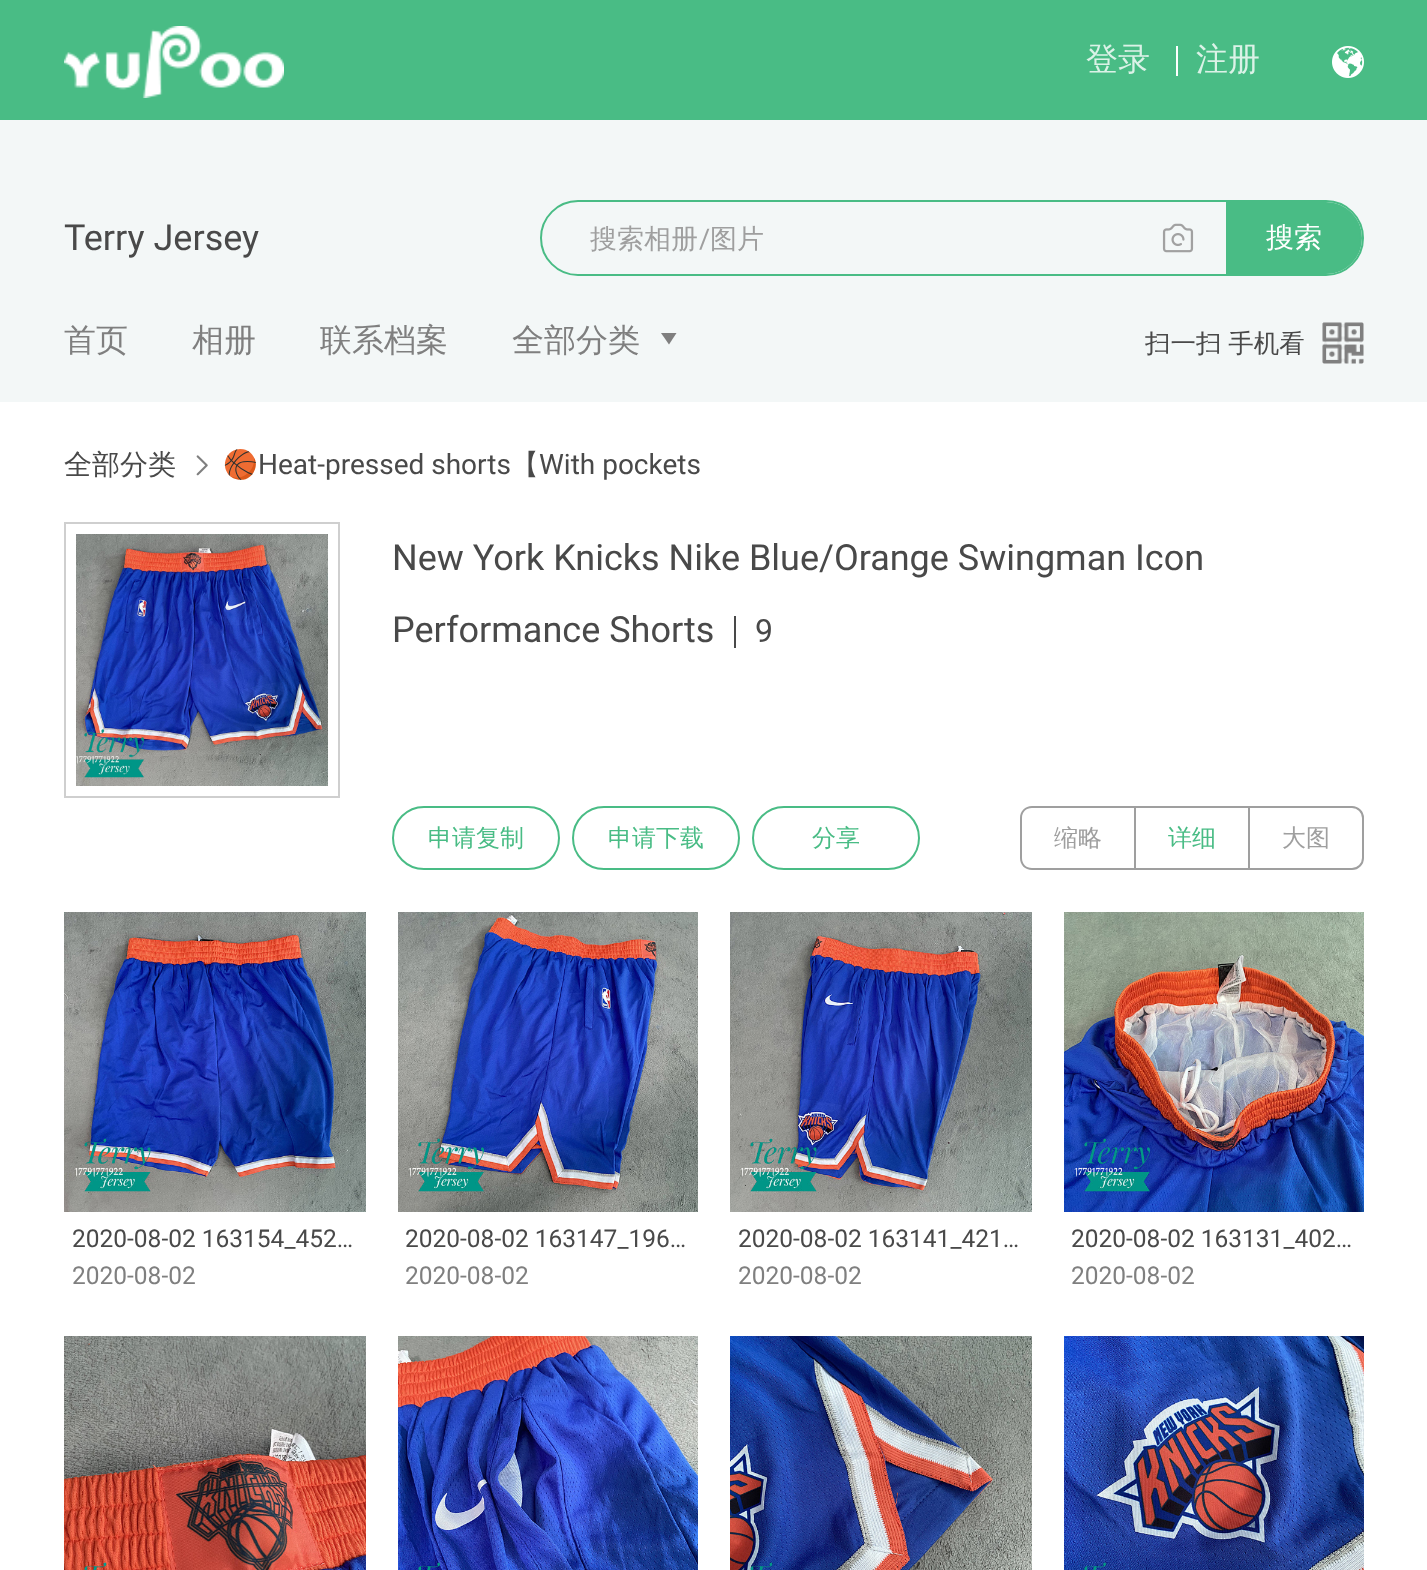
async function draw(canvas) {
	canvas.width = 1427;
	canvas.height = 1570;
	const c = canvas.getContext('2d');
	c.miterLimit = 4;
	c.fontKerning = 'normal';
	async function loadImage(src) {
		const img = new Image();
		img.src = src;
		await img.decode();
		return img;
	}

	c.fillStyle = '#fff';
	c.fillRect(0, 0, 1427, 1570);
	c.fillStyle = '#49bc85';
	c.fillRect(0, 0, 1427, 120);
	c.drawImage(await loadImage('img1.png'), 64, 26, 220, 72);
	c.font = '500 32px WenQuanYi Zen Hei';
	c.fillStyle = '#dbf2e7';
	c.fillText('登录', 1086, 70);
	c.fillStyle = '#fff';
	c.fillRect(1176, 46, 2, 30);
	c.fillStyle = '#dbf2e7';
	c.fillText('注册', 1196, 70);
	c.drawImage(await loadImage('img2.png'), 1332, 46, 32, 32);
	c.fillStyle = '#f3f7f7';
	c.fillRect(0, 120, 1427, 282);
	c.font = '36px Roboto';
	c.fillStyle = '#494949';
	c.fillText('Terry Jersey', 64, 250);
	c.beginPath();
	c.roundRect(541, 201, 822, 74, 37);
	c.strokeStyle = '#49bc85';
	c.lineWidth = 2;
	c.stroke();
	c.font = '500 27px WenQuanYi Zen Hei';
	c.fillStyle = '#9f9f9f';
	c.fillText('搜索相册', 590, 248);
	c.font = '27px Roboto';
	c.fillText('/', 699, 248);
	c.font = '500 27px WenQuanYi Zen Hei';
	c.fillText('图片', 710, 248);
	c.drawImage(await loadImage('img3.png'), 1162, 223, 32, 30);
	c.fillStyle = '#49bc85';
	c.beginPath();
	c.roundRect(1227, 203, 134, 70, [0, 35, 35, 0]);
	c.fill();
	c.stroke();
	c.font = '28px Noto Sans';
	c.fillStyle = '#fff';
	c.fillText('搜', 1266, 247);
	c.font = '500 28px WenQuanYi Zen Hei';
	c.fillText('索', 1294, 247);
	c.font = '500 32px WenQuanYi Zen Hei';
	c.fillStyle = '#7f7f7f';
	for (const [text, x, y] of [
		['首页', 64, 351],
		['相册', 192, 351],
		['联系档案', 320, 351],
		['全部分类', 512, 351],
	]) {
		c.fillText(text, x, y);
	}
	c.beginPath();
	c.moveTo(669, 344.5);
	c.lineTo(661, 333);
	c.lineTo(676.5, 333);
	c.closePath();
	c.fill();
	c.wordSpacing = '-1px';
	c.font = '500 25.5px WenQuanYi Zen Hei';
	c.fillStyle = '#494949';
	c.fillText('扫一扫 手机看', 1145, 352);
	c.drawImage(await loadImage('img4.png'), 1322, 322, 42, 42);
	c.wordSpacing = '0px';
	c.font = '500 28px WenQuanYi Zen Hei';
	c.fillText('全部分类', 64, 474);
	c.drawImage(await loadImage('img5.png'), 196, 455, 12, 21);
	c.font = '28px Noto Color Emoji';
	c.fillText('🏀', 223, 474);
	c.font = '28px Roboto';
	c.fillText('Heat-pressed shorts', 258, 474);
	c.font = '500 28px WenQuanYi Zen Hei';
	c.fillText('【', 511, 474);
	c.font = '28px Roboto';
	c.fillText('With pockets', 539, 474);
	c.strokeStyle = '#cfcfcf';
	c.strokeRect(65, 523, 274, 274);
	c.drawImage(await loadImage('img6.png'), 76, 534, 252, 252);
	c.font = '36px Roboto';
	c.fillText('New York Knicks Nike Blue/Orange Swingman Icon', 392, 570);
	c.fillText('Performance Shorts', 392, 642);
	c.fillRect(734, 616, 2, 32);
	c.font = '32px Roboto';
	c.fillText('9', 755, 642);
	c.beginPath();
	c.roundRect(393, 807, 166, 62, 31);
	c.strokeStyle = '#49bc85';
	c.stroke();
	c.font = '500 24px WenQuanYi Zen Hei';
	c.fillStyle = '#49bc85';
	c.fillText('申请复制', 428, 846);
	c.beginPath();
	c.roundRect(573, 807, 166, 62, 31);
	c.stroke();
	c.fillText('申请下载', 608, 846);
	c.beginPath();
	c.roundRect(753, 807, 166, 62, 31);
	c.stroke();
	c.fillText('分享', 812, 846);
	c.fillStyle = '#9f9f9f';
	c.beginPath();
	c.moveTo(1032, 806);
	c.lineTo(1134, 806);
	c.lineTo(1134, 870);
	c.lineTo(1032, 870);
	c.bezierCurveTo(1025, 870, 1020, 865, 1020, 858);
	c.lineTo(1020, 818);
	c.bezierCurveTo(1020, 811, 1025, 806, 1032, 806);
	c.closePath();
	c.moveTo(1032, 808);
	c.lineTo(1134, 808);
	c.lineTo(1134, 868);
	c.lineTo(1032, 868);
	c.bezierCurveTo(1026, 868, 1022, 864, 1022, 858);
	c.lineTo(1022, 818);
	c.bezierCurveTo(1022, 812, 1026, 808, 1032, 808);
	c.closePath();
	c.fill('evenodd');
	c.fillText('缩略', 1054, 846);
	for (const [x, y, w, h, color] of [
		[1134, 806, 114, 2, '#9f9f9f'],
		[1134, 868, 114, 2, '#9f9f9f'],
		[1134, 806, 2, 64, '#9f9f9f'],
	]) {
		c.fillStyle = color;
		c.fillRect(x, y, w, h);
	}
	c.fillStyle = '#49bc85';
	c.fillText('详细', 1168, 846);
	c.beginPath();
	c.roundRect(1249, 807, 114, 62, [0, 11, 11, 0]);
	c.strokeStyle = '#9f9f9f';
	c.stroke();
	c.fillStyle = '#9f9f9f';
	c.fillText('大图', 1282, 846);
	c.drawImage(await loadImage('img7.png'), 64, 912, 302, 300);
	c.font = '24.5px Roboto';
	c.fillStyle = '#494949';
	c.fillText('2020-08-02 163154_452…', 72, 1247);
	c.fillStyle = '#7f7f7f';
	c.fillText('2020-08-02', 72, 1284);
	c.drawImage(await loadImage('img8.png'), 398, 912, 300, 300);
	c.fillStyle = '#494949';
	c.fillText('2020-08-02 163147_196…', 405, 1247);
	c.fillStyle = '#7f7f7f';
	c.fillText('2020-08-02', 405, 1284);
	c.drawImage(await loadImage('img9.png'), 730, 912, 302, 300);
	c.fillStyle = '#494949';
	c.fillText('2020-08-02 163141_421…', 738, 1247);
	c.fillStyle = '#7f7f7f';
	c.fillText('2020-08-02', 738, 1284);
	c.drawImage(await loadImage('img10.png'), 1064, 912, 300, 300);
	c.fillStyle = '#494949';
	c.fillText('2020-08-02 163131_402…', 1071, 1247);
	c.fillStyle = '#7f7f7f';
	c.fillText('2020-08-02', 1071, 1284);
	c.drawImage(await loadImage('img11.png'), 64, 1336, 302, 234);
	c.drawImage(await loadImage('img12.png'), 398, 1336, 300, 234);
	c.drawImage(await loadImage('img13.png'), 730, 1336, 302, 234);
	c.drawImage(await loadImage('img14.png'), 1064, 1336, 300, 234);
}

draw(document.querySelector('canvas'));
